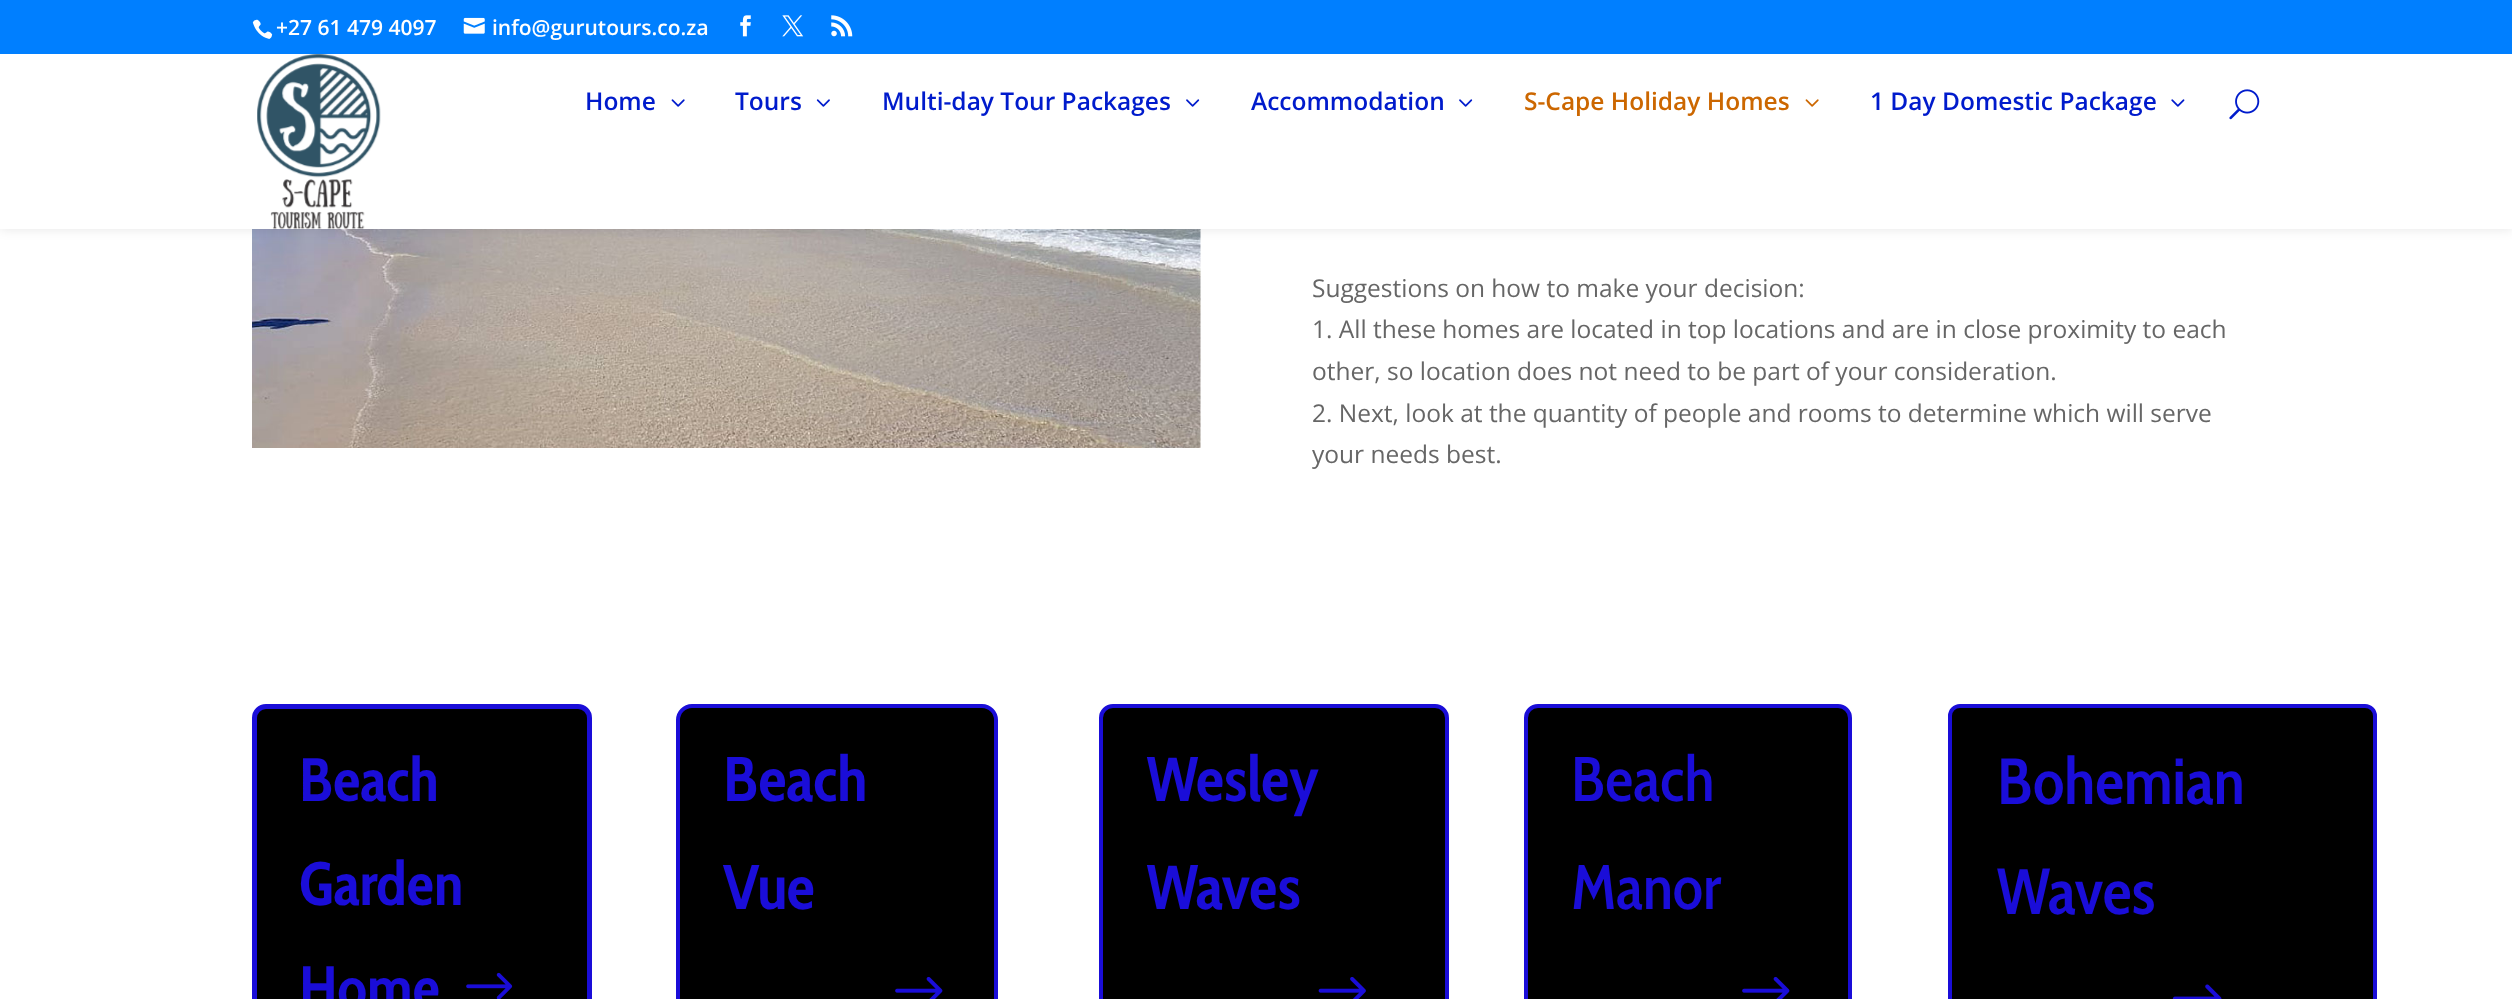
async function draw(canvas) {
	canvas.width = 2512;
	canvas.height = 999;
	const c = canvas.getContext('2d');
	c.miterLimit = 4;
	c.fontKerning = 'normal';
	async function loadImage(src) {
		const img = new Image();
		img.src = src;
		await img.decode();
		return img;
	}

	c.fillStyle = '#fff';
	c.fillRect(0, 0, 2512, 999);
	c.drawImage(await loadImage('img13.png'), 252, 229, 949, 219);
	c.fillStyle = '#0000001a';
	c.filter = 'blur(6px)';
	c.beginPath();
	c.rect(0, 54, 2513, 175);
	c.fill();
	c.filter = 'none';
	c.fillStyle = '#007fff';
	c.fillRect(0, 0, 2512, 54);
	c.drawImage(await loadImage('img1.png'), 252, 19, 21, 20);
	c.font = '600 21px Open Sans';
	c.fillStyle = '#fff';
	c.fillText('+27 61 479 4097', 276, 35);
	c.drawImage(await loadImage('img2.png'), 463, 17, 22, 17);
	c.fillText('info@gurutours.co.za', 492, 35);
	c.drawImage(await loadImage('img3.png'), 740, 15, 11, 22);
	c.drawImage(await loadImage('img4.png'), 782, 15, 22, 22);
	c.drawImage(await loadImage('img5.png'), 831, 15, 22, 22);
	c.fillRect(0, 54, 2512, 175);
	c.drawImage(await loadImage('img6.png'), 257, 54, 124, 176);
	c.font = '600 24.5px Open Sans';
	c.fillStyle = '#001bcc';
	c.fillText('Home', 585, 110);
	c.drawImage(await loadImage('img7.png'), 671, 99, 14, 8);
	c.fillText('Tours', 735, 110);
	c.drawImage(await loadImage('img8.png'), 816, 99, 14, 8);
	c.fillText('Multi-day Tour Packages', 882, 110);
	c.drawImage(await loadImage('img9.png'), 1186, 99, 14, 8);
	c.fillText('Accommodation', 1251, 110);
	c.drawImage(await loadImage('img9.png'), 1459, 99, 14, 8);
	c.fillStyle = '#cc6700';
	c.fillText('S-Cape Holiday Homes', 1524, 110);
	c.drawImage(await loadImage('img10.png'), 1805, 99, 14, 8);
	c.fillStyle = '#001bcc';
	c.fillText('1 Day Domestic Package', 1870, 110);
	c.drawImage(await loadImage('img11.png'), 2171, 99, 14, 8);
	c.drawImage(await loadImage('img12.png'), 2229, 89, 31, 31);
	c.font = '24.5px Open Sans';
	c.fillStyle = '#666';
	for (const [text, x, y] of [
		['Suggestions on how to make your decision:', 1312, 297],
		['1. All these homes are located in top locations and are in close proximity to each', 1312, 338],
		['other, so location does not need to be part of your consideration.', 1312, 380],
		['2. Next, look at the quantity of people and rooms to determine which will serve', 1312, 422],
		['your needs best.', 1312, 463],
	]) {
		c.fillText(text, x, y);
	}
	c.fillStyle = '#000';
	c.beginPath();
	c.roundRect(254.5, 706.5, 335, 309, 11.5);
	c.fill();
	c.strokeStyle = '#1a0dd8';
	c.lineWidth = 5;
	c.stroke();
	c.font = 'bold 61px Cabin Condensed';
	c.fillStyle = '#1a0dd8';
	for (const [text, x, y] of [
		['Beach', 299, 801],
		['Garden', 299, 905],
		['Home', 299, 1009],
	]) {
		c.fillText(text, x, y);
	}
	c.drawImage(await loadImage('img14.png'), 466, 972, 47, 27);
	c.fillStyle = '#000';
	c.beginPath();
	c.roundRect(678, 706, 318, 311, 14);
	c.fill();
	c.lineWidth = 4;
	c.stroke();
	c.font = 'bold 63px Cabin Condensed';
	c.fillStyle = '#1a0dd8';
	c.fillText('Beach', 723, 801);
	c.fillText('Vue', 723, 909);
	c.drawImage(await loadImage('img15.png'), 895, 976, 48, 23);
	c.fillStyle = '#000';
	c.beginPath();
	c.roundRect(1101, 706, 346, 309, 12);
	c.fill();
	c.stroke();
	c.fillStyle = '#1a0dd8';
	c.fillText('Wesley', 1147, 801);
	c.fillText('Waves', 1147, 909);
	c.drawImage(await loadImage('img16.png'), 1318, 977, 48, 22);
	c.fillStyle = '#000';
	c.beginPath();
	c.roundRect(1526, 706, 324, 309, 12);
	c.fill();
	c.stroke();
	c.font = '500 63px Cabin Condensed';
	c.fillStyle = '#1a0dd8';
	c.fillText('Beach', 1571, 801);
	c.fillText('Manor', 1571, 909);
	c.drawImage(await loadImage('img15.png'), 1742, 976, 48, 23);
	c.fillStyle = '#000';
	c.beginPath();
	c.roundRect(1950, 706, 425, 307, 10);
	c.fill();
	c.stroke();
	c.font = '600 65px Cabin Condensed';
	c.fillStyle = '#1a0dd8';
	c.fillText('Bohemian', 1997, 804);
	c.fillText('Waves', 1997, 914);
	c.drawImage(await loadImage('img17.png'), 2172, 984, 50, 15);
}

draw(document.querySelector('canvas'));
